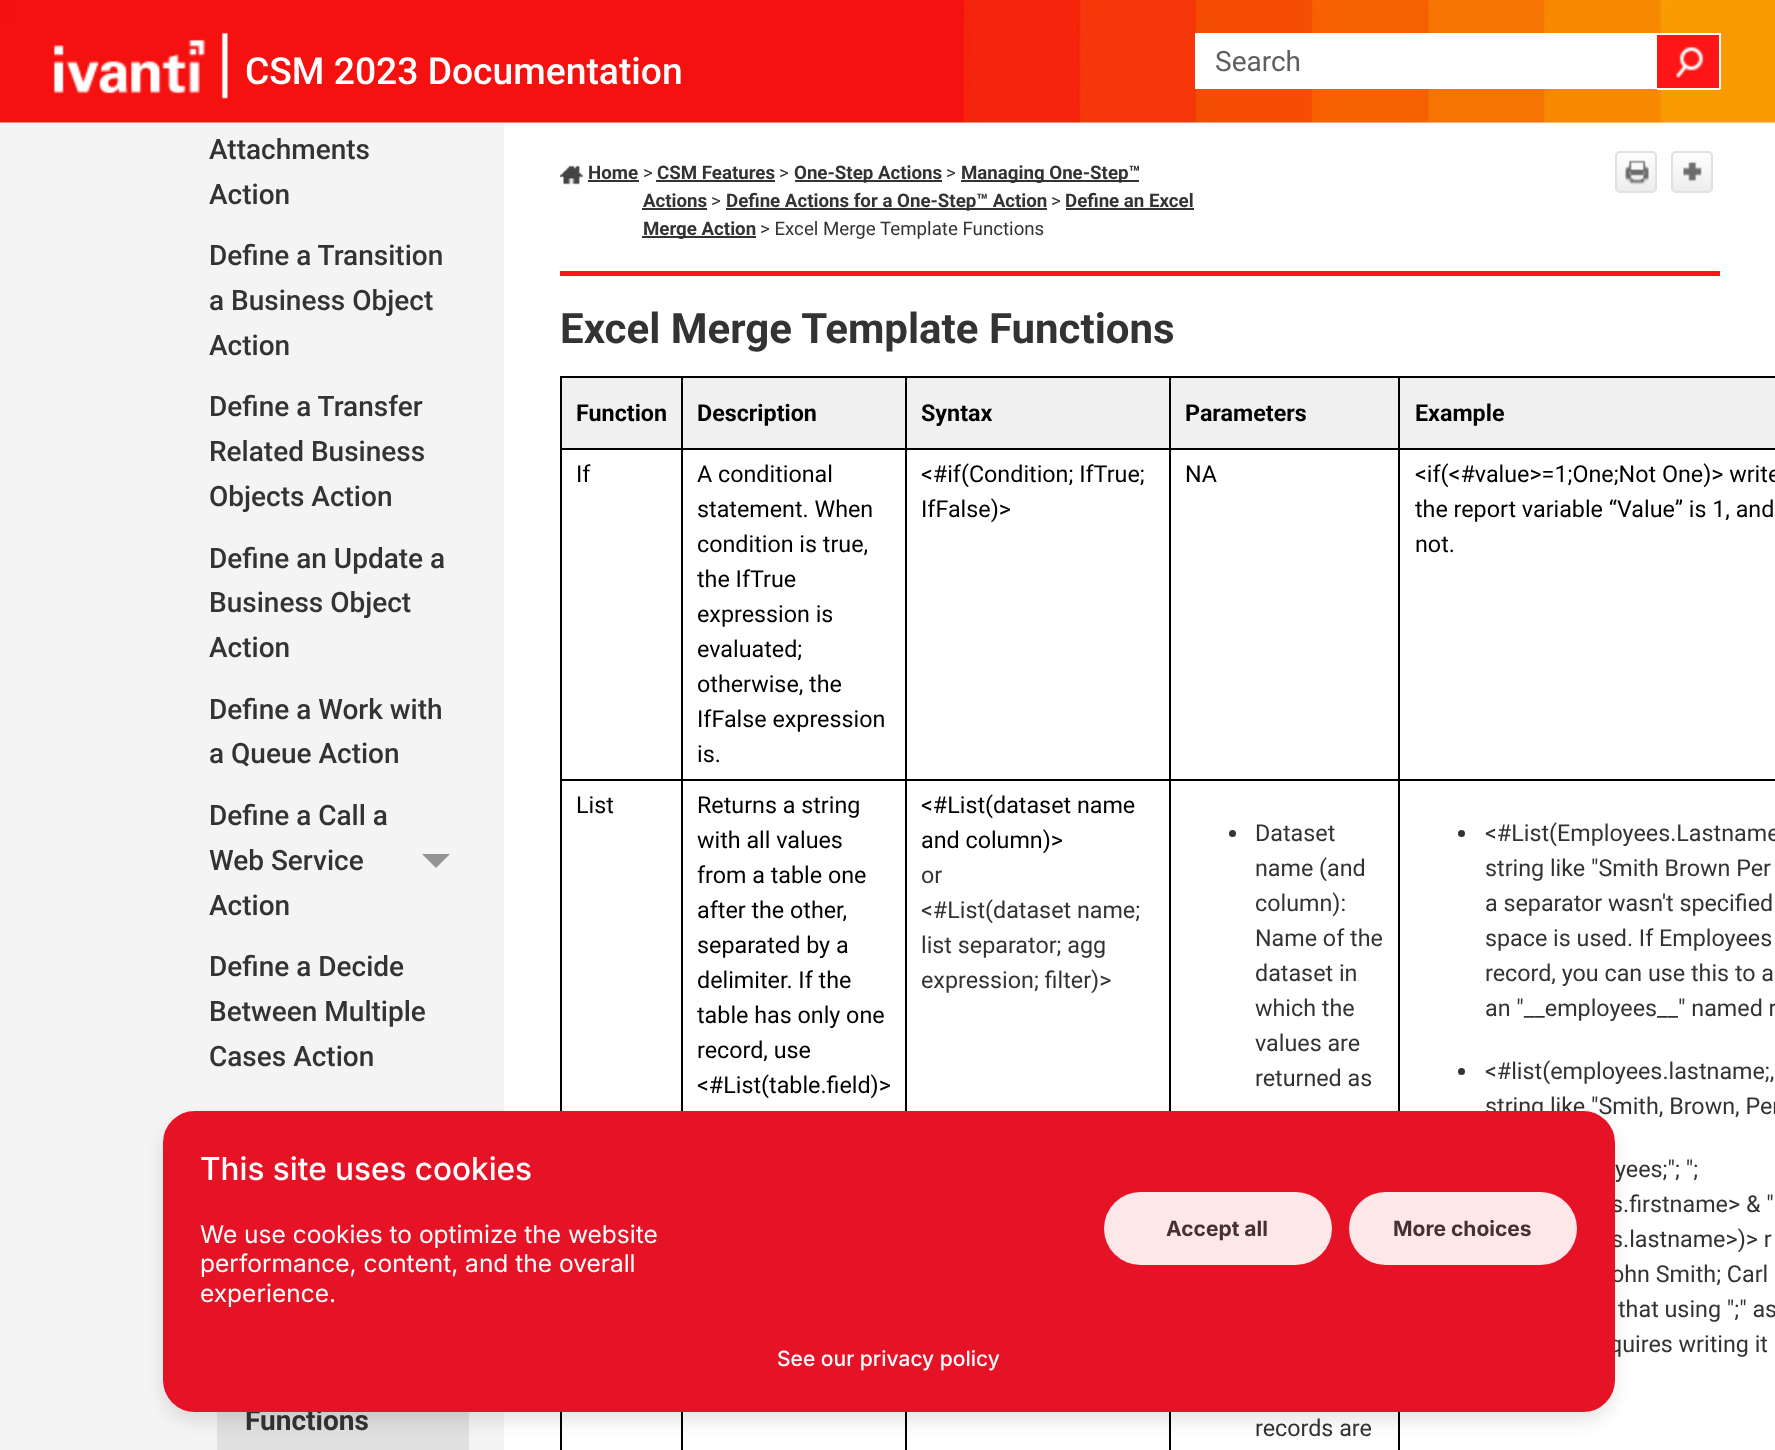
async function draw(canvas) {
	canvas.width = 1775;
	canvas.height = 1450;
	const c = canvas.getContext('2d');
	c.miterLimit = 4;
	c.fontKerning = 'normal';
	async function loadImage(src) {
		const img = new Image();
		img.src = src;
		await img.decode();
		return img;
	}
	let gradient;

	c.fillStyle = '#f4f4f4';
	c.fillRect(0, 0, 1775, 1450);
	c.drawImage(await loadImage('img1.png'), 0, 0, 1775, 123);
	c.drawImage(await loadImage('img2.png'), 53, 32, 175, 67);
	c.fillStyle = '#fff';
	c.fillRect(1195, 33, 462, 56);
	c.font = '28px Roboto';
	c.fillStyle = '#5f5f5f';
	c.fillText('Search', 1215, 71);
	c.fillStyle = '#ff1515';
	c.fillRect(1657, 35, 62, 53);
	c.drawImage(await loadImage('img3.png'), 1676, 46, 28, 32);
	for (const [x, y, w, h, color] of [
		[1657, 33, 63, 2, '#fff'],
		[1719, 33, 2, 56, '#fff'],
		[1657, 88, 63, 2, '#fff'],
		[504, 123, 1271, 1327, '#fff'],
	]) {
		c.fillStyle = color;
		c.fillRect(x, y, w, h);
	}
	c.font = '500 37.25px Roboto';
	c.fillText('CSM 2023 Documentation', 245, 84);
	c.fillStyle = '#ff1515';
	c.fillRect(560, 271, 1160, 5);
	c.drawImage(await loadImage('img4.png'), 560, 165, 24, 20);
	c.font = 'bold 18.7px Roboto';
	c.fillStyle = '#333';
	c.fillText('Home', 588, 179);
	c.fillRect(588, 180, 51, 2);
	c.font = '18.7px Roboto';
	c.fillText('>', 643, 179);
	c.font = 'bold 18.7px Roboto';
	c.fillText('CSM Features', 657, 179);
	c.fillRect(656, 180, 119, 2);
	c.font = '18.7px Roboto';
	c.fillText('>', 779, 179);
	c.fillRect(795, 180, 147, 2);
	c.font = 'bold 18.7px Roboto';
	c.fillText('One-Step Actions', 794, 179);
	c.font = '18.7px Roboto';
	c.fillText('>', 946, 179);
	c.fillRect(961, 180, 178, 2);
	c.font = 'bold 18.7px Roboto';
	c.fillText('Managing One-Step™', 961, 179);
	c.fillText('Actions', 643, 207);
	c.fillRect(642, 208, 65, 2);
	c.font = '18.7px Roboto';
	c.fillText('>', 711, 207);
	c.fillRect(726, 208, 321, 2);
	c.font = 'bold 18.7px Roboto';
	c.fillText('Define Actions for a One-Step™ Action', 726, 207);
	c.font = '18.7px Roboto';
	c.fillText('>', 1051, 207);
	c.font = 'bold 18.7px Roboto';
	c.fillText('Define an Excel', 1065, 207);
	c.fillRect(1066, 208, 128, 2);
	c.fillRect(642, 236, 114, 2);
	c.fillText('Merge Action', 643, 235);
	c.font = '18.7px Roboto';
	c.fillText('> Excel Merge Template Functions', 760, 235);
	c.save();
	c.beginPath();
	c.roundRect(1615, 151, 42, 42, 5);
	c.clip();
	gradient = c.createLinearGradient(1636, 152, 1636, 191);
	gradient.addColorStop(0, '#fff');
	gradient.addColorStop(1, '#ececec');
	c.fillStyle = gradient;
	c.fillRect(1615, 152, 42, 39);
	c.restore();
	c.beginPath();
	c.roundRect(1616, 152, 40, 40, 4);
	c.strokeStyle = '#e1e1e1';
	c.lineWidth = 2;
	c.stroke();
	c.drawImage(await loadImage('img5.png'), 1624, 160, 25, 25);
	c.save();
	c.beginPath();
	c.roundRect(1671, 151, 42, 42, 5);
	c.clip();
	gradient = c.createLinearGradient(1692, 152, 1692, 191);
	gradient.addColorStop(0, '#fff');
	gradient.addColorStop(1, '#ececec');
	c.fillStyle = gradient;
	c.fillRect(1671, 152, 42, 39);
	c.restore();
	c.beginPath();
	c.roundRect(1672, 152, 40, 40, 4);
	c.stroke();
	c.drawImage(await loadImage('img6.png'), 1683, 162, 19, 20);
	c.font = 'bold 42px Roboto';
	c.fillText('Excel Merge Template Functions', 560, 343);
	for (const [x, y, w, h, color] of [
		[560, 376, 1215, 2, '#000'],
		[560, 376, 2, 1074, '#000'],
		[562, 378, 119, 70, '#f0f0f0'],
		[1398, 779, 2, 671, '#000'],
		[1398, 779, 377, 2, '#000'],
		[1398, 448, 2, 333, '#000'],
		[1398, 448, 377, 2, '#000'],
		[1398, 376, 2, 74, '#000'],
		[1169, 779, 2, 671, '#000'],
		[1169, 779, 231, 2, '#000'],
		[1169, 448, 2, 333, '#000'],
		[1169, 448, 231, 2, '#000'],
		[1169, 376, 2, 74, '#000'],
		[905, 779, 2, 671, '#000'],
		[905, 779, 266, 2, '#000'],
		[905, 448, 2, 333, '#000'],
		[905, 448, 266, 2, '#000'],
		[905, 376, 2, 74, '#000'],
		[681, 779, 2, 671, '#000'],
		[681, 779, 226, 2, '#000'],
		[681, 448, 2, 333, '#000'],
		[681, 448, 226, 2, '#000'],
		[681, 376, 2, 74, '#000'],
		[560, 448, 123, 2, '#000'],
	]) {
		c.fillStyle = color;
		c.fillRect(x, y, w, h);
	}
	c.font = 'bold 23.3px Roboto';
	c.fillText('Function', 576, 421);
	c.fillStyle = '#f0f0f0';
	c.fillRect(683, 378, 222, 70);
	c.fillStyle = '#000';
	c.fillText('Description', 697, 421);
	c.fillStyle = '#f0f0f0';
	c.fillRect(907, 378, 262, 70);
	c.fillStyle = '#000';
	c.fillText('Syntax', 921, 421);
	c.fillStyle = '#f0f0f0';
	c.fillRect(1171, 378, 227, 70);
	c.fillStyle = '#000';
	c.fillText('Parameters', 1185, 421);
	c.fillStyle = '#f0f0f0';
	c.fillRect(1400, 378, 375, 70);
	c.fillStyle = '#000';
	c.fillText('Example', 1415, 421);
	c.fillRect(560, 779, 123, 2);
	c.font = '23.3px Roboto';
	for (const [text, x, y] of [
		['If', 576, 482],
		['A conditional', 697, 482],
		['statement. When', 697, 517],
		['condition is true,', 697, 552],
		['the IfTrue', 697, 587],
		['expression is', 697, 622],
		['evaluated;', 697, 657],
		['otherwise, the', 697, 692],
		['IfFalse expression', 697, 727],
		['is.', 697, 762],
		['<#if(Condition; IfTrue;', 921, 482],
		['IfFalse)>', 921, 517],
		['NA', 1185, 482],
		['<if(<#value>=1;One;Not One)> write', 1415, 482],
		['the report variable “Value” is 1, and', 1415, 517],
		['not.', 1415, 552],
		['List', 576, 813],
		['Returns a string', 697, 813],
		['with all values', 697, 848],
		['from a table one', 697, 883],
		['after the other,', 697, 918],
		['separated by a', 697, 953],
		['delimiter. If the', 697, 988],
		['table has only one', 697, 1023],
		['record, use', 697, 1058],
		['<#List(table.field)>', 697, 1093],
		['<#List(dataset name', 921, 813],
		['and column)>', 921, 848],
	]) {
		c.fillText(text, x, y);
	}
	c.fillStyle = '#333';
	for (const [text, x, y] of [
		['or', 921, 883],
		['<#List(dataset name;', 921, 918],
		['list separator; agg', 921, 953],
		['expression; filter)>', 921, 988],
	]) {
		c.fillText(text, x, y);
	}
	c.beginPath();
	c.arc(1232.5, 833.5, 3.5, 0, 2 * Math.PI);
	c.fill();
	for (const [text, x, y] of [
		['Dataset', 1255, 841],
		['name (and', 1255, 876],
		['column):', 1255, 911],
		['Name of the', 1255, 946],
		['dataset in', 1255, 981],
		['which the', 1255, 1016],
		['values are', 1255, 1051],
		['returned as', 1255, 1086],
		['records are', 1255, 1436],
	]) {
		c.fillText(text, x, y);
	}
	c.beginPath();
	c.arc(1461.5, 833.5, 3.5, 0, 2 * Math.PI);
	c.fill();
	for (const [text, x, y] of [
		['<#List(Employees.Lastname', 1485, 841],
		['string like "Smith Brown Per', 1485, 876],
		['a separator wasn\'t specified', 1485, 911],
		['space is used. If Employees', 1485, 946],
		['record, you can use this to a', 1485, 981],
		['an "__employees__" named r', 1485, 1016],
	]) {
		c.fillText(text, x, y);
	}
	c.beginPath();
	c.arc(1461.5, 1071.5, 3.5, 0, 2 * Math.PI);
	c.fill();
	for (const [text, x, y] of [
		['<#list(employees.lastname;,', 1485, 1079],
		['string like "Smith, Brown, Per', 1485, 1114],
		['yees;"; ";', 1615, 1177],
		['s.firstname> & "', 1611, 1212],
		['s.lastname>)> r', 1611, 1247],
		['ohn Smith; Carl', 1611, 1282],
		['that using ";" as', 1618, 1317],
		['quires writing it', 1609, 1352],
	]) {
		c.fillText(text, x, y);
	}
	c.font = '500 28px Roboto';
	for (const [text, x, y] of [
		['Attachments', 209, 159],
		['Action', 209, 204],
		['Define a Transition', 209, 265],
		['a Business Object', 209, 310],
		['Action', 209, 355],
		['Define a Transfer', 209, 416],
		['Related Business', 209, 461],
		['Objects Action', 209, 506],
		['Define an Update a', 209, 568],
		['Business Object', 209, 612],
		['Action', 209, 657],
		['Define a Work with', 209, 719],
		['a Queue Action', 209, 763],
		['Define a Call a', 209, 825],
		['Web Service', 209, 870],
	]) {
		c.fillText(text, x, y);
	}
	c.fillStyle = '#949494';
	c.beginPath();
	c.moveTo(422, 854);
	c.lineTo(450, 854);
	c.lineTo(436, 868);
	c.closePath();
	c.fill();
	c.fillStyle = '#333';
	for (const [text, x, y] of [
		['Action', 209, 915],
		['Define a Decide', 209, 976],
		['Between Multiple', 209, 1021],
		['Cases Action', 209, 1066],
	]) {
		c.fillText(text, x, y);
	}
	c.fillStyle = '#e0e0e0';
	c.fillRect(217, 1412, 252, 38);
	c.font = 'bold 28px Roboto';
	c.fillStyle = '#333';
	c.fillText('Functions', 245, 1430);
	c.fillStyle = '#0000001a';
	c.filter = 'blur(9px)';
	c.beginPath();
	c.roundRect(163, 1120, 1452, 301, 32);
	c.fill();
	c.filter = 'none';
	c.fillStyle = '#e61226';
	c.beginPath();
	c.roundRect(164, 1112, 1450, 299, 31);
	c.fill();
	c.strokeStyle = '#e61226';
	c.stroke();
	c.font = '500 31.5px Inter';
	c.fillStyle = '#fff';
	c.fillText('This site uses cookies', 200, 1180);
	c.font = '24.5px Inter';
	for (const [text, x, y] of [
		['We use cookies to optimize the website', 200, 1243],
		['performance, content, and the overall', 200, 1272],
		['experience.', 200, 1302],
	]) {
		c.fillText(text, x, y);
	}
	c.fillStyle = '#fde7e9';
	c.beginPath();
	c.roundRect(1104, 1192, 228, 73, 36.5);
	c.fill();
	c.font = 'bold 21px Inter';
	c.fillStyle = '#453032';
	c.fillText('Accept all', 1166, 1236);
	c.fillStyle = '#fde7e9';
	c.beginPath();
	c.roundRect(1349, 1192, 228, 73, 36.5);
	c.fill();
	c.fillStyle = '#453032';
	c.fillText('More choices', 1393, 1236);
	c.font = '500 21px Inter';
	c.fillStyle = '#fff';
	c.fillText('See our privacy policy', 777, 1366);
}

draw(document.querySelector('canvas'));
